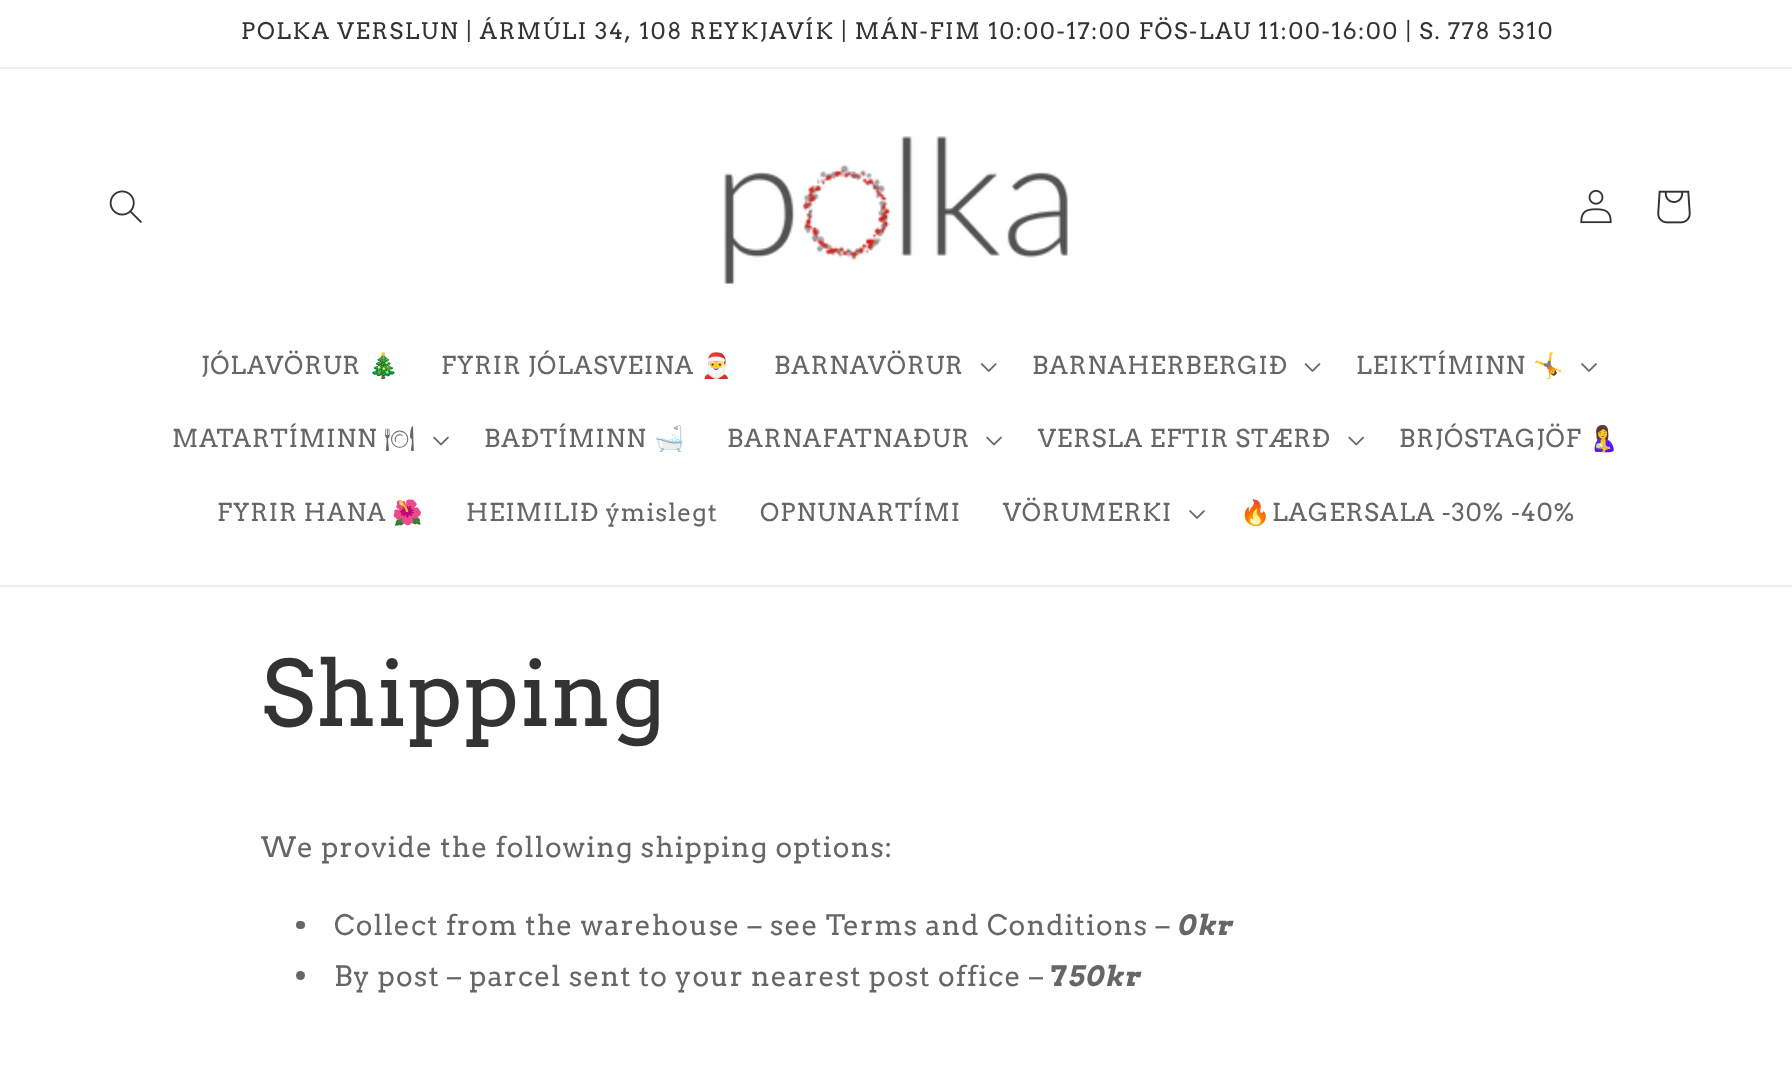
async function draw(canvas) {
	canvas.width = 1792;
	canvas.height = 1071;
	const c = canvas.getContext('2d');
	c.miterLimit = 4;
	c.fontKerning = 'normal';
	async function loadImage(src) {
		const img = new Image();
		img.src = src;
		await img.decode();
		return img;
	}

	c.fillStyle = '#fff';
	c.fillRect(0, 0, 1792, 1071);
	c.fillStyle = '#efefef';
	c.fillRect(0, 67, 1792, 2);
	c.letterSpacing = '1.75px';
	c.font = '22.75px Arvo';
	c.fillStyle = '#333';
	c.fillText('POLKA VERSLUN | ÁRMÚLI 34, 108 REYKJAVÍK | MÁN-FIM 10:00-17:00 FÖS-LAU 11:00-16:00 | S. 778 5310', 241, 39);
	c.fillStyle = '#efefef';
	c.fillRect(0, 585, 1792, 2);
	c.drawImage(await loadImage('img1.png'), 109, 190, 33, 33);
	c.drawImage(await loadImage('img2.png'), 724, 136, 344, 149);
	c.drawImage(await loadImage('img3.png'), 1580, 189, 32, 35);
	c.drawImage(await loadImage('img4.png'), 1657, 190, 34, 34);
	c.letterSpacing = '1.05px';
	c.font = '24.5px Arvo';
	c.fillStyle = '#666';
	c.fillText('JÓLAVÖRUR', 201, 374);
	c.font = '24.5px Noto Color Emoji';
	c.fillText('🎄', 368, 374);
	c.font = '24.5px Arvo';
	c.fillText('FYRIR JÓLASVEINA', 441, 374);
	c.font = '24.5px Noto Color Emoji';
	c.fillText('🎅', 701, 374);
	c.font = '24.5px Arvo';
	c.fillText('BARNAVÖRUR', 774, 374);
	c.drawImage(await loadImage('img5.png'), 981, 363, 16, 9);
	c.fillText('BARNAHERBERGIÐ', 1032, 374);
	c.drawImage(await loadImage('img6.png'), 1304, 363, 17, 9);
	c.fillText('LEIKTÍMINN', 1356, 374);
	c.font = '24.5px Noto Color Emoji';
	c.fillText('🤸', 1533, 374);
	c.drawImage(await loadImage('img7.png'), 1581, 363, 16, 9);
	c.font = '24.5px Arvo';
	c.fillText('MATARTÍMINN', 172, 447);
	c.font = '24.5px Noto Emoji';
	c.fillText('🍽', 384, 447);
	c.drawImage(await loadImage('img8.png'), 433, 436, 16, 10);
	c.font = '24.5px Arvo';
	c.fillText('BAÐTÍMINN', 484, 447);
	c.font = '24.5px Noto Color Emoji';
	c.fillText('🛁', 654, 447);
	c.font = '24.5px Arvo';
	c.fillText('BARNAFATNAÐUR', 727, 447);
	c.drawImage(await loadImage('img8.png'), 986, 436, 16, 10);
	c.fillText('VERSLA EFTIR STÆRÐ', 1038, 447);
	c.drawImage(await loadImage('img9.png'), 1348, 436, 17, 10);
	c.fillText('BRJÓSTAGJÖF', 1399, 447);
	c.font = '24.5px Noto Color Emoji';
	c.fillText('🤱', 1588, 447);
	c.font = '24.5px Arvo';
	c.fillText('FYRIR HANA', 217, 521);
	c.font = '24.5px Noto Color Emoji';
	c.fillText('🌺', 392, 521);
	c.font = '24.5px Arvo';
	for (const [text, x, y] of [
		['HEIMILIÐ ýmislegt', 466, 521],
		['OPNUNARTÍMI', 760, 521],
		['VÖRUMERKI', 1003, 521],
	]) {
		c.fillText(text, x, y);
	}
	c.drawImage(await loadImage('img7.png'), 1189, 510, 16, 9);
	c.font = '24.5px Noto Color Emoji';
	c.fillText('🔥', 1240, 521);
	c.font = '24.5px Arvo';
	c.fillText('LAGERSALA -30% -40%', 1272, 521);
	c.font = '91px Arvo';
	c.fillStyle = '#333';
	c.fillText('Shipping', 261, 726);
	c.font = '28px Arvo';
	c.fillStyle = '#666';
	c.fillText('We provide the following shipping options:', 261, 857);
	c.beginPath();
	c.roundRect(296, 921, 9, 8, 4);
	c.fill();
	c.fillText('Collect from the warehouse – see Terms and Conditions –', 334, 935);
	c.font = 'italic bold 28px Arvo';
	c.fillText('0kr', 1178, 935);
	c.beginPath();
	c.arc(300.5, 975.5, 4.5, 0, 2 * Math.PI);
	c.fill();
	c.font = '28px Arvo';
	c.fillText('By post – parcel sent to your nearest post office –', 334, 986);
	c.font = 'bold 28px Arvo';
	c.fillText('7', 1051, 986);
	c.font = 'italic bold 28px Arvo';
	c.fillText('50kr', 1069, 986);
}

draw(document.querySelector('canvas'));
